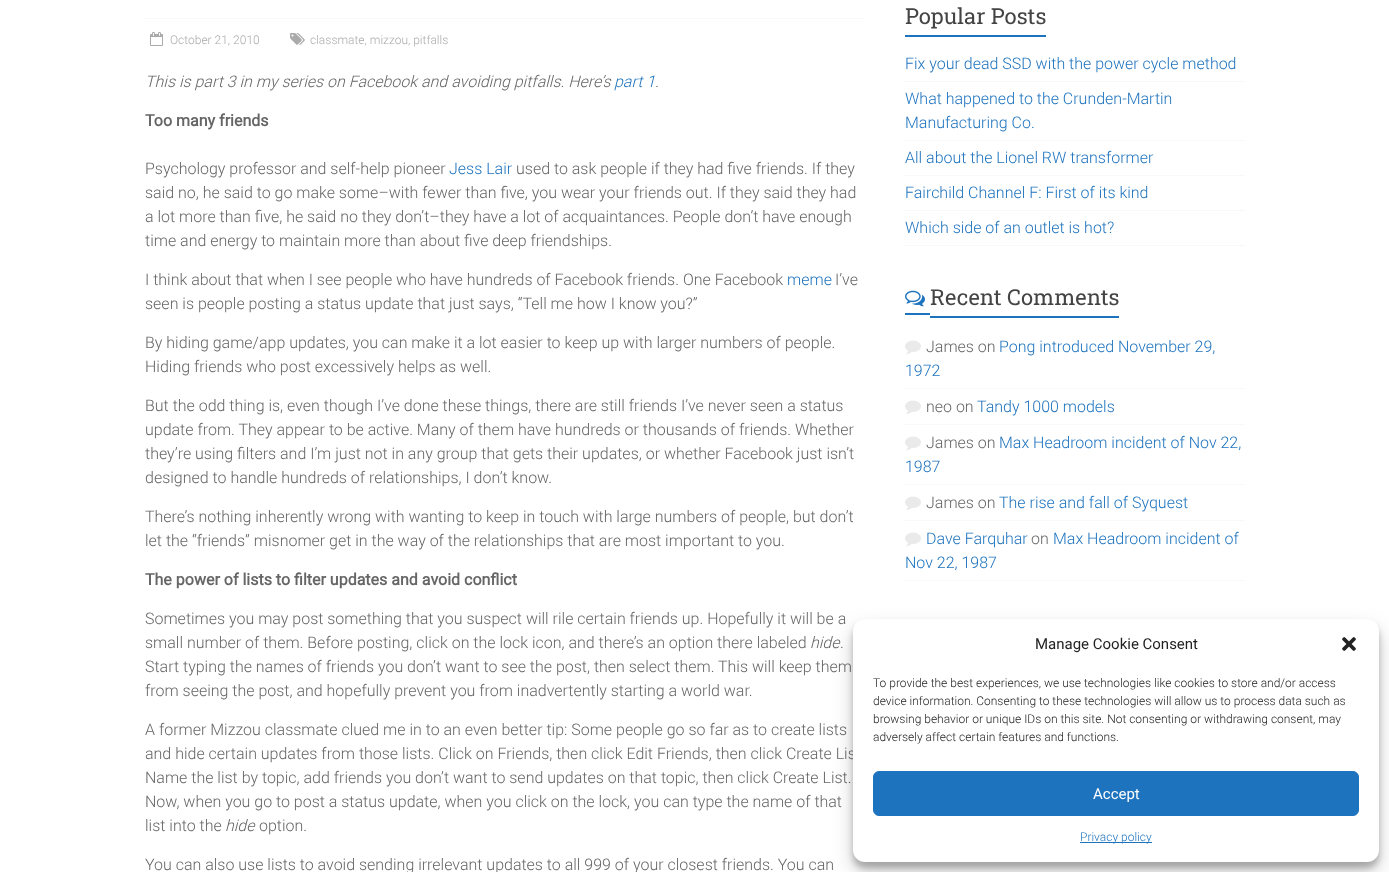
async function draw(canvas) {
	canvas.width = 1389;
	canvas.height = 872;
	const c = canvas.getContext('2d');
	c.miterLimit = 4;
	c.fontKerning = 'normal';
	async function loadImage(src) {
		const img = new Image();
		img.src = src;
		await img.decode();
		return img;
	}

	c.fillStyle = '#fff';
	c.fillRect(0, 0, 1389, 872);
	c.fillStyle = '#f8f8f8';
	c.fillRect(145, 18, 720, 1);
	c.drawImage(await loadImage('img1.png'), 150, 32, 13, 14);
	c.font = '300 12px Roboto';
	c.fillStyle = '#aaa';
	c.fillText('October 21, 2010', 170, 44);
	c.drawImage(await loadImage('img2.png'), 290, 33, 15, 12);
	c.fillText('classmate, mizzou, pitfalls', 310, 44);
	c.font = 'italic 300 16px Roboto';
	c.fillStyle = '#666';
	c.fillText('This is part 3 in my series on Facebook and avoiding pitfalls. Here’s', 145, 87);
	c.fillStyle = '#1e73be';
	c.fillText('part 1', 614, 87);
	c.fillStyle = '#666';
	c.fillText('.', 655, 87);
	c.font = 'bold 16px Roboto';
	c.fillText('Too many friends', 145, 126);
	c.font = '300 16px Roboto';
	c.fillText('Psychology professor and self-help pioneer', 145, 174);
	c.fillStyle = '#1e73be';
	c.fillText('Jess Lair', 449, 174);
	c.fillStyle = '#666';
	for (const [text, x, y] of [
		['used to ask people if they had five friends. If they', 516, 174],
		['said no, he said to go make some–with fewer than five, you wear your friends out. If they said they had', 145, 198],
		['a lot more than five, he said no they don’t–they have a lot of acquaintances. People don’t have enough', 145, 222],
		['time and energy to maintain more than about five deep friendships.', 145, 246],
		['I think about that when I see people who have hundreds of Facebook friends. One Facebook', 145, 285],
	]) {
		c.fillText(text, x, y);
	}
	c.fillStyle = '#1e73be';
	c.fillText('meme', 787, 285);
	c.fillStyle = '#666';
	for (const [text, x, y] of [
		['I’ve', 835, 285],
		['seen is people posting a status update that just says, “Tell me how I know you?”', 145, 309],
		['By hiding game/app updates, you can make it a lot easier to keep up with larger numbers of people.', 145, 348],
		['Hiding friends who post excessively helps as well.', 145, 372],
		['But the odd thing is, even though I’ve done these things, there are still friends I’ve never seen a status', 145, 411],
		['update from. They appear to be active. Many of them have hundreds or thousands of friends. Whether', 145, 435],
		['they’re using filters and I’m just not in any group that gets their updates, or whether Facebook just isn’t', 145, 459],
		['designed to handle hundreds of relationships, I don’t know.', 145, 483],
		['There’s nothing inherently wrong with wanting to keep in touch with large numbers of people, but don’t', 145, 522],
		['let the “friends” misnomer get in the way of the relationships that are most important to you.', 145, 546],
	]) {
		c.fillText(text, x, y);
	}
	c.font = 'bold 16px Roboto';
	c.fillText('The power of lists to filter updates and avoid conflict', 145, 585);
	c.font = '300 16px Roboto';
	c.fillText('Sometimes you may post something that you suspect will rile certain friends up. Hopefully it will be a', 145, 624);
	c.fillText('small number of them. Before posting, click on the lock icon, and there’s an option there labeled', 145, 648);
	c.font = 'italic 300 16px Roboto';
	c.fillText('hide', 810, 648);
	c.font = '300 16px Roboto';
	for (const [text, x, y] of [
		['.', 840, 648],
		['Start typing the names of friends you don’t want to see the post, then select them. This will keep them', 145, 672],
		['from seeing the post, and hopefully prevent you from inadvertently starting a world war.', 145, 696],
		['A former Mizzou classmate clued me in to an even better tip: Some people go so far as to create lists', 145, 735],
		['and hide certain updates from those lists. Click on Friends, then click Edit Friends, then click Create Lis', 145, 759],
		['Name the list by topic, add friends you don’t want to send updates on that topic, then click Create List.', 145, 783],
		['Now, when you go to post a status update, when you click on the lock, you can type the name of that', 145, 807],
		['list into the', 145, 831],
	]) {
		c.fillText(text, x, y);
	}
	c.font = 'italic 300 16px Roboto';
	c.fillText('hide', 225, 831);
	c.font = '300 16px Roboto';
	c.fillText('option.', 259, 831);
	c.fillText('You can also use lists to avoid sending irrelevant updates to all 999 of your closest friends. You can', 145, 870);
	c.font = '22px Roboto Slab';
	c.fillStyle = '#444';
	c.fillText('Popular Posts', 905, 24);
	c.fillStyle = '#1e73be';
	c.fillRect(905, 35, 141, 2);
	c.fillStyle = '#f8f8f8';
	c.fillRect(905, 81, 340, 1);
	c.font = '300 16px Roboto';
	c.fillStyle = '#1e73be';
	c.fillText('Fix your dead SSD with the power cycle method', 905, 69);
	c.fillStyle = '#f8f8f8';
	c.fillRect(905, 140, 340, 1);
	c.fillStyle = '#1e73be';
	c.fillText('What happened to the Crunden-Martin', 905, 104);
	c.fillText('Manufacturing Co.', 905, 128);
	c.fillStyle = '#f8f8f8';
	c.fillRect(905, 175, 340, 1);
	c.fillStyle = '#1e73be';
	c.fillText('All about the Lionel RW transformer', 905, 163);
	c.fillStyle = '#f8f8f8';
	c.fillRect(905, 210, 340, 1);
	c.fillStyle = '#1e73be';
	c.fillText('Fairchild Channel F: First of its kind', 905, 198);
	c.fillStyle = '#f8f8f8';
	c.fillRect(905, 245, 340, 1);
	c.fillStyle = '#1e73be';
	c.fillText('Which side of an outlet is hot?', 905, 233);
	c.drawImage(await loadImage('img3.png'), 905, 290, 20, 17);
	c.font = '22px Roboto Slab';
	c.fillStyle = '#444';
	c.fillText('Recent Comments', 930, 305);
	for (const [x, y, w, h, color] of [
		[905, 313, 25, 2, '#1e73be'],
		[930, 316, 189, 2, '#1e73be'],
		[905, 388, 340, 1, '#f8f8f8'],
	]) {
		c.fillStyle = color;
		c.fillRect(x, y, w, h);
	}
	c.drawImage(await loadImage('img4.png'), 905, 340, 16, 14);
	c.font = '300 16px Roboto';
	c.fillStyle = '#666';
	c.fillText('James on', 926, 352);
	c.fillStyle = '#1e73be';
	c.fillText('Pong introduced November 29,', 999, 352);
	c.fillText('1972', 905, 376);
	c.fillStyle = '#f8f8f8';
	c.fillRect(905, 424, 340, 1);
	c.drawImage(await loadImage('img4.png'), 905, 400, 16, 14);
	c.fillStyle = '#666';
	c.fillText('neo on', 926, 412);
	c.fillStyle = '#1e73be';
	c.fillText('Tandy 1000 models', 977, 412);
	c.fillStyle = '#f8f8f8';
	c.fillRect(905, 484, 340, 1);
	c.drawImage(await loadImage('img4.png'), 905, 436, 16, 14);
	c.fillStyle = '#666';
	c.fillText('James on', 926, 448);
	c.fillStyle = '#1e73be';
	c.fillText('Max Headroom incident of Nov 22,', 999, 448);
	c.fillText('1987', 905, 472);
	c.fillStyle = '#f8f8f8';
	c.fillRect(905, 520, 340, 1);
	c.drawImage(await loadImage('img4.png'), 905, 496, 16, 14);
	c.fillStyle = '#666';
	c.fillText('James on', 926, 508);
	c.fillStyle = '#1e73be';
	c.fillText('The rise and fall of Syquest', 999, 508);
	c.fillStyle = '#f8f8f8';
	c.fillRect(905, 580, 340, 1);
	c.drawImage(await loadImage('img4.png'), 905, 532, 16, 14);
	c.fillStyle = '#1e73be';
	c.fillText('Dave Farquhar', 926, 544);
	c.fillStyle = '#666';
	c.fillText('on', 1031, 544);
	c.fillStyle = '#1e73be';
	c.fillText('Max Headroom incident of', 1053, 544);
	c.fillText('Nov 22, 1987', 905, 568);
	c.fillStyle = '#0000003b';
	c.filter = 'blur(3px)';
	c.beginPath();
	c.roundRect(853, 625, 526, 243, 12);
	c.fill();
	c.filter = 'none';
	c.fillStyle = '#00000030';
	c.filter = 'blur(10px)';
	c.beginPath();
	c.roundRect(853, 629, 526, 243, 12);
	c.fill();
	c.filter = 'none';
	c.fillStyle = '#fff';
	c.beginPath();
	c.roundRect(853, 619, 526, 243, 12);
	c.fill();
	c.font = '15px Roboto';
	c.fillStyle = '#222';
	c.fillText('Manage Cookie Consent', 1035, 649);
	c.drawImage(await loadImage('img5.png'), 1342, 637, 14, 14);
	c.font = '300 12px Roboto';
	for (const [text, x, y] of [
		['To provide the best experiences, we use technologies like cookies to store and/or access', 873, 687],
		['device information. Consenting to these technologies will allow us to process data such as', 873, 705],
		['browsing behavior or unique IDs on this site. Not consenting or withdrawing consent, may', 873, 723],
		['adversely affect certain features and functions.', 873, 741],
	]) {
		c.fillText(text, x, y);
	}
	c.fillStyle = '#1e73be';
	c.beginPath();
	c.roundRect(873.5, 771.5, 485, 44, 5.5);
	c.fill();
	c.strokeStyle = '#1e73be';
	c.stroke();
	c.font = '15px Roboto';
	c.fillStyle = '#fff';
	c.fillText('Accept', 1093, 799);
	c.fillStyle = '#1e73be';
	c.fillRect(1080, 842, 72, 1);
	c.font = '300 12px Roboto';
	c.fillText('Privacy policy', 1080, 841);
}

draw(document.querySelector('canvas'));
